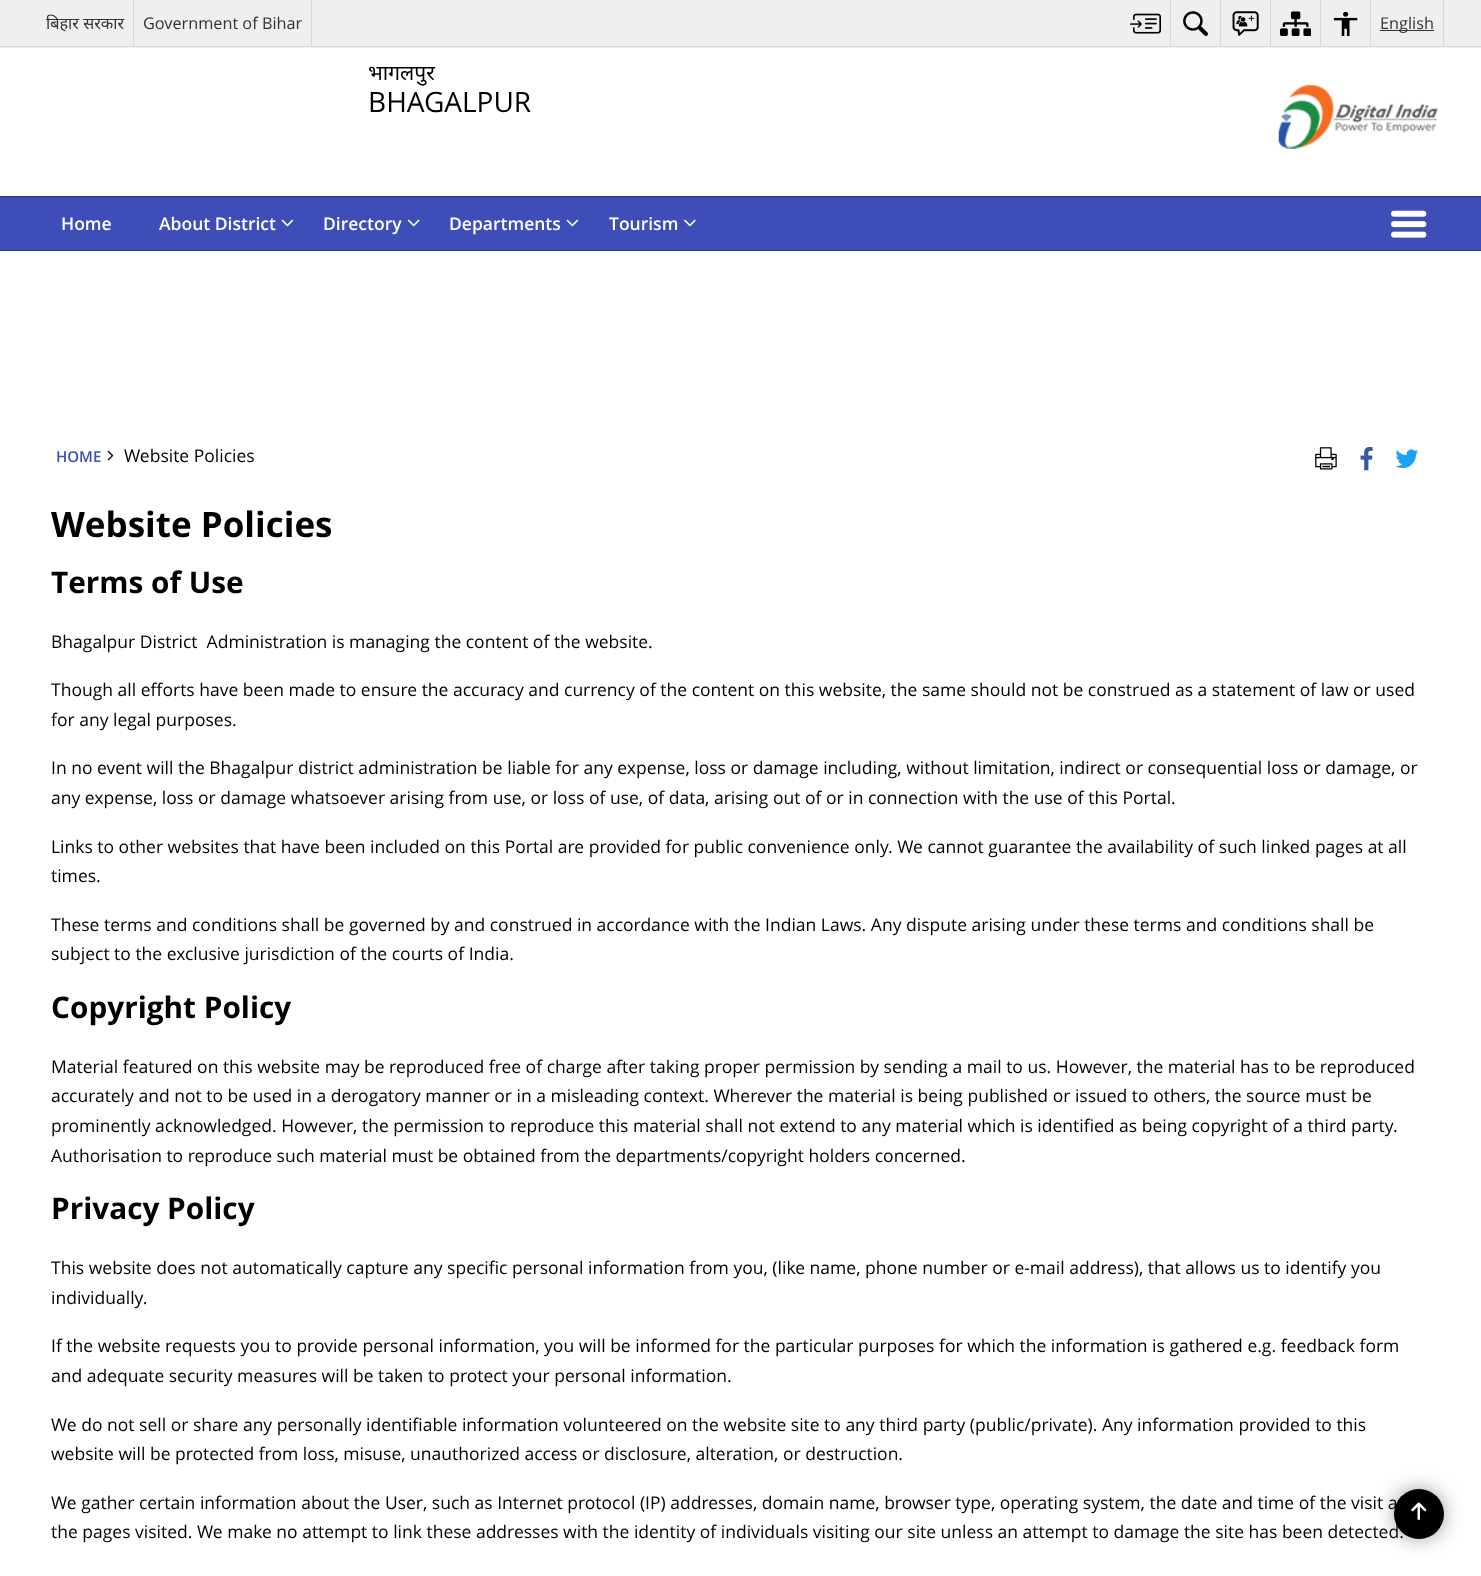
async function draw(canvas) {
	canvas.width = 1481;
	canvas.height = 1576;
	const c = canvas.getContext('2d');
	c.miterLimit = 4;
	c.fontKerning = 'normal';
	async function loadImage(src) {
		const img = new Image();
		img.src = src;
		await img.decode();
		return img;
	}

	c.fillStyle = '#fff';
	c.fillRect(0, 0, 1481, 1576);
	for (const [x, y, w, h, color] of [
		[0, 0, 1481, 48, '#efefef'],
		[0, 46, 1481, 1, '#d8d8d8'],
		[133, 0, 1, 46, '#d8d8d8'],
	]) {
		c.fillStyle = color;
		c.fillRect(x, y, w, h);
	}
	c.font = '16.25px Noto Sans';
	c.fillStyle = '#333';
	c.fillText('बिहार सरकार', 46, 29);
	c.fillStyle = '#d8d8d8';
	c.fillRect(311, 0, 1, 46);
	c.font = '16.25px Open Sans';
	c.fillStyle = '#333';
	c.fillText('Government of Bihar', 143, 29);
	c.fillStyle = '#d8d8d8';
	c.fillRect(1170, 0, 1, 46);
	c.drawImage(await loadImage('img1.png'), 1130, 13, 31, 21);
	c.fillRect(1220, 0, 1, 46);
	c.drawImage(await loadImage('img2.png'), 1183, 11, 25, 25);
	c.fillRect(1270, 0, 1, 46);
	c.drawImage(await loadImage('img3.png'), 1232, 11, 27, 25);
	c.fillRect(1320, 0, 1, 46);
	c.drawImage(await loadImage('img4.png'), 1280, 11, 31, 25);
	c.fillRect(1370, 0, 1, 46);
	c.drawImage(await loadImage('img5.png'), 1333, 11, 25, 25);
	c.fillRect(1443, 0, 1, 46);
	c.fillStyle = '#333';
	c.fillRect(1380, 30, 54, 1);
	c.fillText('English', 1380, 29);
	c.font = '21px Noto Sans';
	c.fillStyle = '#000';
	c.fillText('भागलपुर', 368, 80);
	c.font = '28px Open Sans';
	c.fillText('BHAGALPUR', 368, 112);
	c.drawImage(await loadImage('img6.png'), 1278, 84, 160, 65);
	for (const [x, y, w, h, color] of [
		[0, 197, 1481, 53, '#3f4db8'],
		[0, 196, 1481, 1, '#2c3681'],
		[0, 250, 1481, 1, '#2c3681'],
	]) {
		c.fillStyle = color;
		c.fillRect(x, y, w, h);
	}
	c.font = '600 17.5px Open Sans';
	c.fillStyle = '#fff';
	c.fillText('Home', 61, 230);
	c.fillText('About District', 159, 230);
	c.drawImage(await loadImage('img7.png'), 281, 219, 13, 8);
	c.fillText('Directory', 323, 230);
	c.drawImage(await loadImage('img8.png'), 407, 219, 13, 8);
	c.fillText('Departments', 449, 230);
	c.drawImage(await loadImage('img7.png'), 566, 219, 13, 8);
	c.fillText('Tourism', 609, 230);
	c.drawImage(await loadImage('img9.png'), 684, 219, 12, 8);
	c.drawImage(await loadImage('img10.png'), 1391, 210, 36, 28);
	c.font = '600 15px Open Sans';
	c.fillStyle = '#3f4db8';
	c.fillText('HOME', 56, 462);
	c.drawImage(await loadImage('img11.png'), 107, 450, 7, 11);
	c.font = '17.5px Open Sans';
	c.fillStyle = '#000';
	c.fillText('Website Policies', 124, 462);
	c.drawImage(await loadImage('img12.png'), 1315, 447, 22, 23);
	c.drawImage(await loadImage('img13.png'), 1360, 447, 13, 24);
	c.drawImage(await loadImage('img14.png'), 1395, 449, 24, 20);
	c.font = 'bold 35px Open Sans';
	c.fillText('Website Policies', 51, 537);
	c.font = 'bold 29.75px Open Sans';
	c.fillText('Terms of Use', 51, 593);
	c.font = '17.5px Open Sans';
	for (const [text, x, y] of [
		['Bhagalpur District  Administration is managing the content of the website.', 51, 648],
		['Though all efforts have been made to ensure the accuracy and currency of the content on this website, the same should not be construed as a statement of law or used', 51, 696],
		['for any legal purposes.', 51, 726],
		['In no event will the Bhagalpur district administration be liable for any expense, loss or damage including, without limitation, indirect or consequential loss or damage, or', 51, 774],
		['any expense, loss or damage whatsoever arising from use, or loss of use, of data, arising out of or in connection with the use of this Portal.', 51, 804],
		['Links to other websites that have been included on this Portal are provided for public convenience only. We cannot guarantee the availability of such linked pages at all', 51, 853],
		['times.', 51, 882],
		['These terms and conditions shall be governed by and construed in accordance with the Indian Laws. Any dispute arising under these terms and conditions shall be', 51, 931],
		['subject to the exclusive jurisdiction of the courts of India.', 51, 960],
	]) {
		c.fillText(text, x, y);
	}
	c.font = 'bold 29.75px Open Sans';
	c.fillText('Copyright Policy', 51, 1018);
	c.font = '17.5px Open Sans';
	for (const [text, x, y] of [
		['Material featured on this website may be reproduced free of charge after taking proper permission by sending a mail to us. However, the material has to be reproduced', 51, 1073],
		['accurately and not to be used in a derogatory manner or in a misleading context. Wherever the material is being published or issued to others, the source must be', 51, 1102],
		['prominently acknowledged. However, the permission to reproduce this material shall not extend to any material which is identified as being copyright of a third party.', 51, 1132],
		['Authorisation to reproduce such material must be obtained from the departments/copyright holders concerned.', 51, 1162],
	]) {
		c.fillText(text, x, y);
	}
	c.font = 'bold 29.75px Open Sans';
	c.fillText('Privacy Policy', 51, 1219);
	c.font = '17.5px Open Sans';
	for (const [text, x, y] of [
		['This website does not automatically capture any specific personal information from you, (like name, phone number or e-mail address), that allows us to identify you', 51, 1274],
		['individually.', 51, 1304],
		['If the website requests you to provide personal information, you will be informed for the particular purposes for which the information is gathered e.g. feedback form', 51, 1352],
		['and adequate security measures will be taken to protect your personal information.', 51, 1382],
		['We do not sell or share any personally identifiable information volunteered on the website site to any third party (public/private). Any information provided to this', 51, 1431],
		['website will be protected from loss, misuse, unauthorized access or disclosure, alteration, or destruction.', 51, 1460],
		['We gather certain information about the User, such as Internet protocol (IP) addresses, domain name, browser type, operating system, the date and time of the visit a', 51, 1509],
		['the pages visited. We make no attempt to link these addresses with the identity of individuals visiting our site unless an attempt to damage the site has been detected.', 51, 1538],
	]) {
		c.fillText(text, x, y);
	}
	c.fillStyle = '#3c3c3c';
	c.filter = 'blur(12px)';
	c.beginPath();
	c.roundRect(1400, 1495, 38, 38, 19);
	c.fill();
	c.filter = 'none';
	c.fillStyle = '#000';
	c.beginPath();
	c.arc(1419, 1514, 25, 0, 2 * Math.PI);
	c.fill();
	c.drawImage(await loadImage('img15.png'), 1411, 1502, 16, 18);
}

draw(document.querySelector('canvas'));
